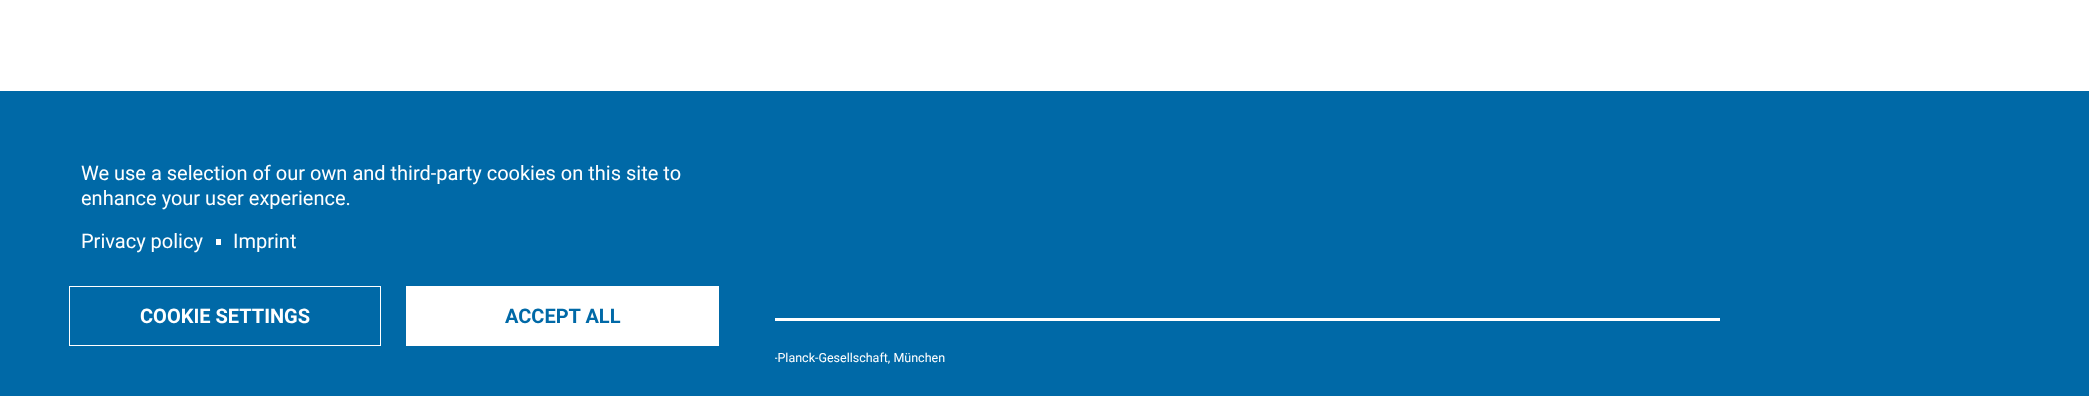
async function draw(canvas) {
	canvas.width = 2089;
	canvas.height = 396;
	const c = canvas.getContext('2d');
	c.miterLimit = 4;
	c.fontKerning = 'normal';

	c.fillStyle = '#fff';
	c.fillRect(0, 0, 2089, 396);
	c.fillStyle = '#0069a7';
	c.fillRect(0, 91, 2089, 305);
	c.font = '12.5px Roboto';
	c.fillStyle = '#fff';
	c.fillText('-Planck-Gesellschaft, München', 774, 362);
	c.fillStyle = '#0069a7';
	c.fillRect(773, 357, 2, 2);
	c.font = '20px Roboto';
	c.fillStyle = '#fff';
	for (const [text, x, y] of [
		['We use a selection of our own and third-party cookies on this site to', 81, 180],
		['enhance your user experience.', 81, 205],
		['Privacy policy', 81, 248],
	]) {
		c.fillText(text, x, y);
	}
	c.fillRect(216, 239, 5, 6);
	c.fillText('Imprint', 233, 248);
	c.strokeStyle = '#fff';
	c.strokeRect(69.5, 286.5, 311, 59);
	c.font = 'bold 20px Roboto';
	c.fillText('COOKIE SETTINGS', 140, 323);
	c.fillRect(406, 286, 313, 60);
	c.fillStyle = '#0069a7';
	c.fillText('ACCEPT ALL', 505, 323);
	c.fillStyle = '#fff';
	c.fillRect(775, 318, 945, 3);
}

draw(document.querySelector('canvas'));
